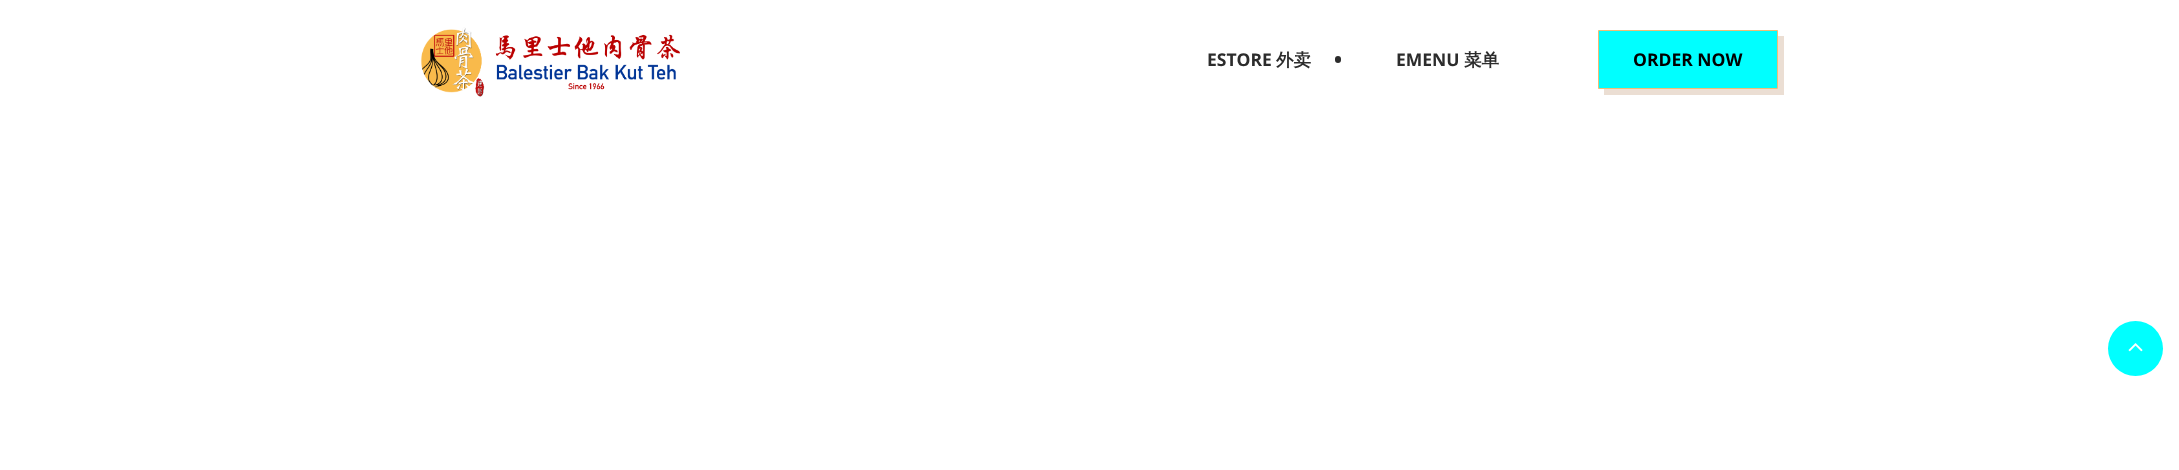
async function draw(canvas) {
	canvas.width = 2179;
	canvas.height = 470;
	const c = canvas.getContext('2d');
	c.miterLimit = 4;
	c.fontKerning = 'normal';
	async function loadImage(src) {
		const img = new Image();
		img.src = src;
		await img.decode();
		return img;
	}

	c.fillStyle = '#fff';
	c.fillRect(0, 0, 2179, 470);
	c.drawImage(await loadImage('img1.png'), 421, 27, 259, 70);
	c.font = 'bold 17.5px Open Sans';
	c.fillStyle = '#2c2c2c';
	c.fillText('ESTORE', 1207, 66);
	c.font = 'bold 17.5px WenQuanYi Zen Hei';
	c.fillText('外卖', 1276, 66);
	c.beginPath();
	c.roundRect(1335, 56, 6, 7, 3);
	c.fill();
	c.font = 'bold 17.5px Open Sans';
	c.fillText('EMENU', 1396, 66);
	c.font = 'bold 17.5px WenQuanYi Zen Hei';
	c.fillText('菜单', 1464, 66);
	c.fillStyle = '#ebded3';
	c.beginPath();
	c.moveTo(1604, 89);
	c.lineTo(1604, 95);
	c.lineTo(1784, 95);
	c.lineTo(1784, 36);
	c.lineTo(1778, 36);
	c.lineTo(1778, 89);
	c.closePath();
	c.fill();
	c.fillStyle = '#0ff';
	c.beginPath();
	c.rect(1598.5, 30.5, 179, 58);
	c.fill();
	c.strokeStyle = '#eebe76';
	c.stroke();
	c.font = 'bold 17.5px Open Sans';
	c.fillStyle = '#000';
	c.fillText('ORDER NOW', 1633, 66);
	c.fillStyle = '#0ff';
	c.beginPath();
	c.arc(2135.5, 348.5, 27.5, 0, 2 * Math.PI);
	c.fill();
	c.drawImage(await loadImage('img2.png'), 2128, 343, 15, 9);
}

draw(document.querySelector('canvas'));
